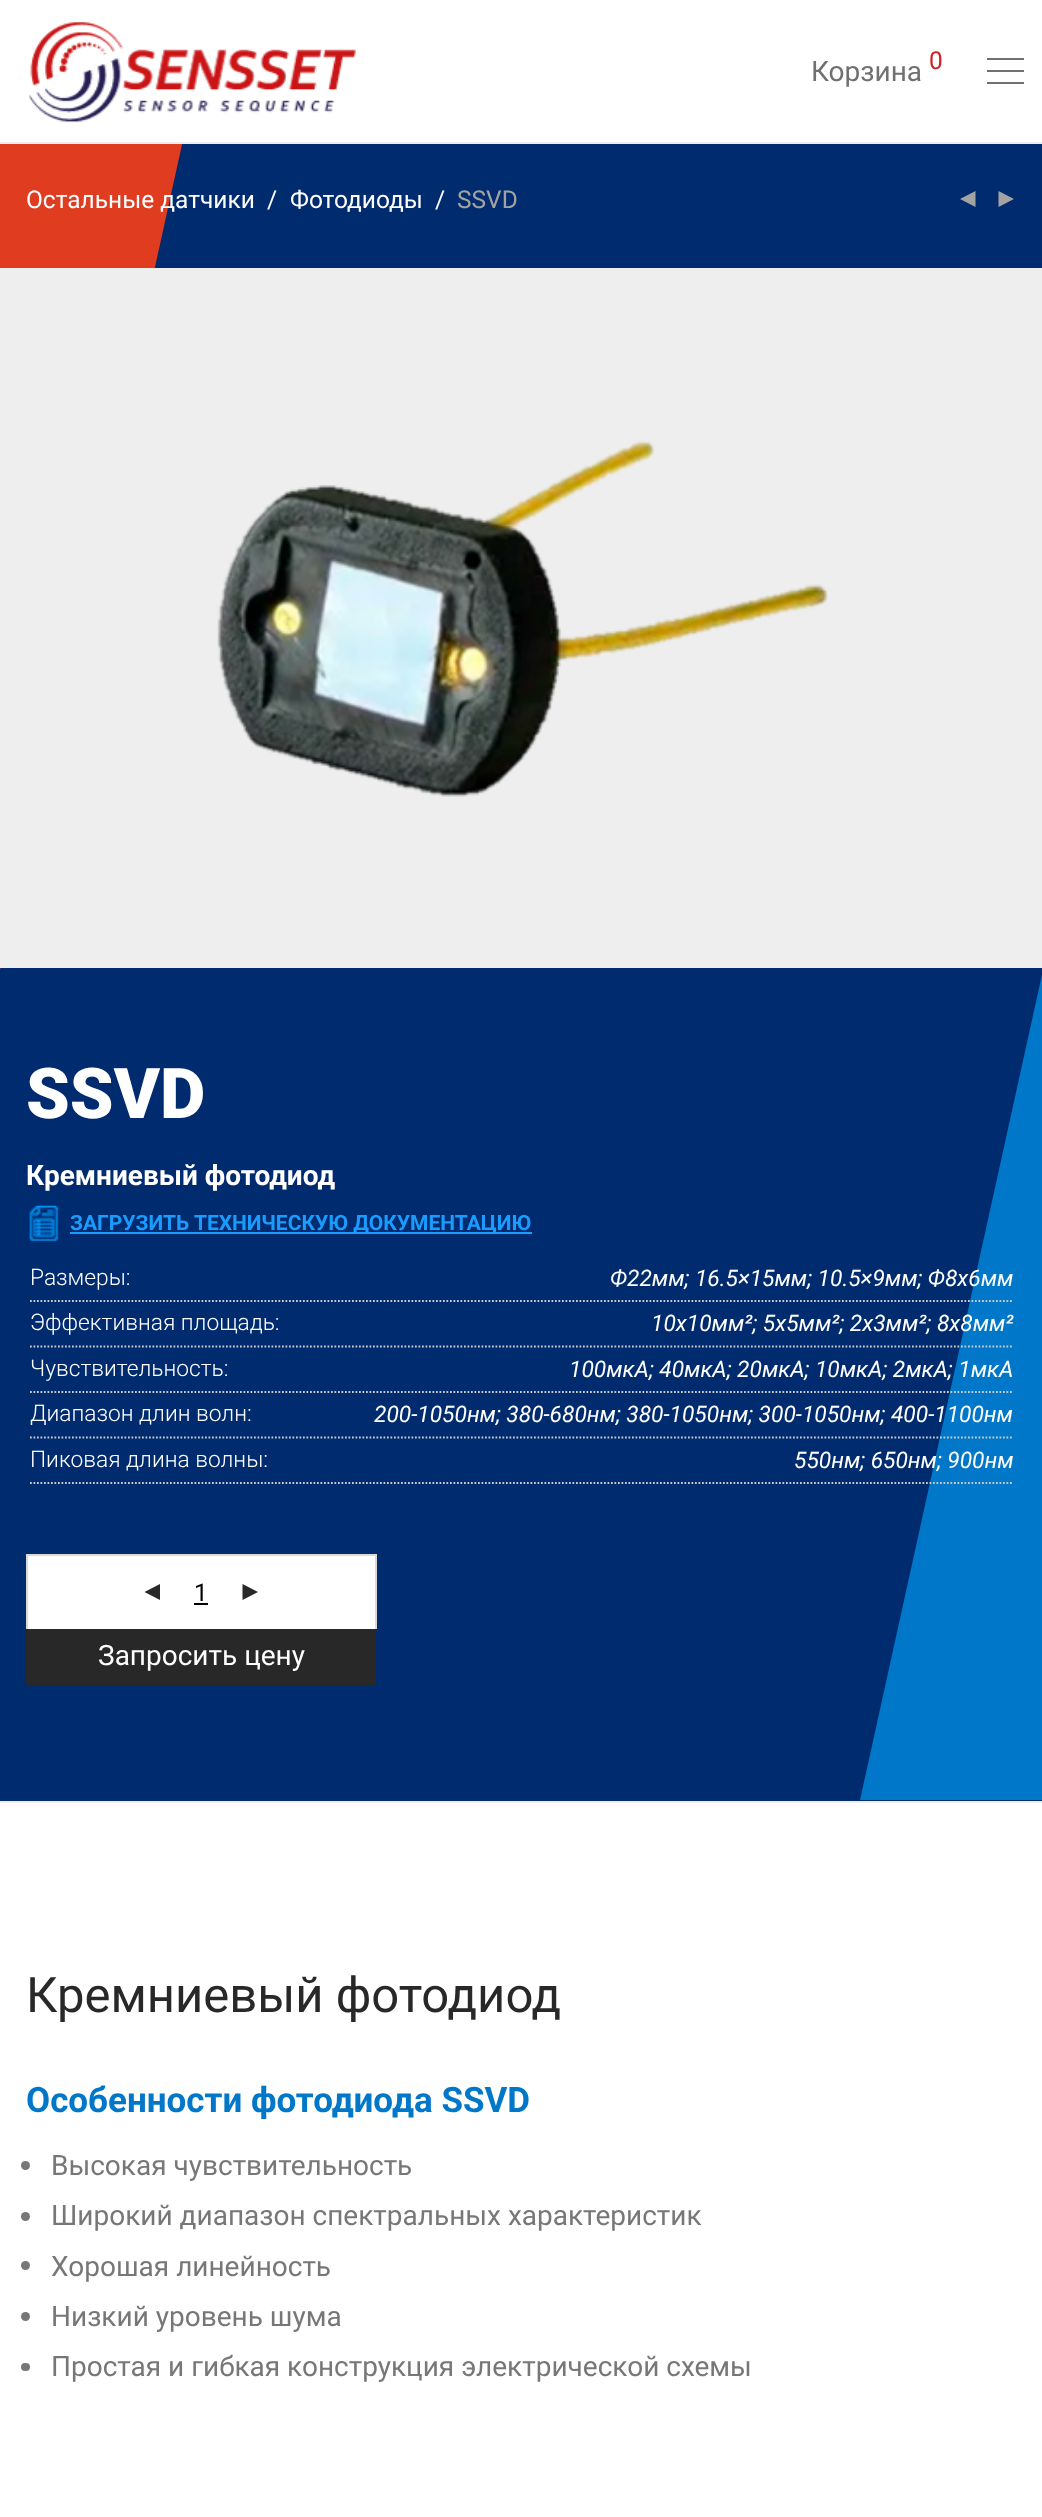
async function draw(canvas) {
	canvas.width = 1042;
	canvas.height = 2517;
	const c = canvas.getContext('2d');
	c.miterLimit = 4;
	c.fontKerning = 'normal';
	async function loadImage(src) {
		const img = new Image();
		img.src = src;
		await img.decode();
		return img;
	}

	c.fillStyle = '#fff';
	c.fillRect(0, 0, 1042, 2517);
	c.fillStyle = '#002b6f';
	c.fillRect(0, 144, 1042, 1657);
	c.fillStyle = '#e03c20';
	c.beginPath();
	c.moveTo(0, 140);
	c.lineTo(0, 970);
	c.lineTo(183, 140);
	c.closePath();
	c.fill();
	c.fillStyle = '#fff';
	c.fillRect(0, 140, 183, 2);
	c.fillStyle = '#eee';
	c.fillRect(0, 142, 1042, 2);
	c.drawImage(await loadImage('img1.png'), 29, 22, 327, 101);
	c.font = '28px Roboto';
	c.fillStyle = '#707070';
	c.fillText('Корзина', 811, 81);
	c.font = '24.5px Roboto';
	c.fillStyle = '#cd2027';
	c.fillText('0', 929, 69);
	for (const [x, y, w, h, color] of [
		[987, 58, 37, 2, '#707070'],
		[987, 70, 37, 2, '#707070'],
		[987, 82, 37, 2, '#707070'],
	]) {
		c.fillStyle = color;
		c.fillRect(x, y, w, h);
	}
	c.fillStyle = '#fff';
	for (const [text, x, y] of [
		['Остальные датчики', 26, 208],
		['/', 267, 208],
		['Фотодиоды', 290, 208],
		['/', 435, 208],
	]) {
		c.fillText(text, x, y);
	}
	c.fillStyle = '#a3a3a3';
	c.fillText('SSVD', 457, 208);
	c.beginPath();
	c.moveTo(975.5, 191);
	c.lineTo(975.5, 207);
	c.lineTo(960, 199);
	c.closePath();
	c.moveTo(998.5, 191);
	c.lineTo(998.5, 207);
	c.lineTo(1014, 199);
	c.closePath();
	c.fill();
	c.fillStyle = '#0077c8';
	c.beginPath();
	c.moveTo(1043, 970);
	c.lineTo(860, 1800);
	c.lineTo(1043, 1800);
	c.closePath();
	c.fill();
	c.fillStyle = '#eee';
	c.fillRect(0, 268, 1042, 700);
	c.drawImage(await loadImage('img2.png'), 217, 440, 611, 357);
	c.font = '900 70px Roboto';
	c.fillStyle = '#fff';
	c.fillText('SSVD', 26, 1118);
	c.font = 'bold 28px Roboto';
	c.fillText('Кремниевый фотодиод', 26, 1185);
	c.drawImage(await loadImage('img3.png'), 29, 1205, 30, 36);
	c.fillStyle = '#1a9cff';
	c.fillRect(70, 1232, 462, 2);
	c.font = 'bold 21px Roboto';
	c.fillText('ЗАГРУЗИТЬ ТЕХНИЧЕСКУЮ ДОКУМЕНТАЦИЮ', 70, 1230);
	c.beginPath();
	c.moveTo(30, 1301);
	c.lineTo(1013, 1301);
	c.strokeStyle = '#ccc';
	c.lineWidth = 1.8;
	c.setLineDash([1.75, 1.75]);
	c.stroke();
	c.font = '300 22.75px Roboto';
	c.fillStyle = '#fff';
	c.fillText('Размеры:', 30, 1285);
	c.font = 'italic 22.75px Roboto';
	c.fillText('Ф22мм; 16.5×15мм; 10.5×9мм; Ф8х6мм', 610, 1286);
	c.beginPath();
	c.moveTo(30, 1346.5);
	c.lineTo(1013, 1346.5);
	c.stroke();
	c.font = '300 22.75px Roboto';
	c.fillText('Эффективная площадь:', 30, 1330);
	c.font = 'italic 22.75px Roboto';
	c.fillText('10х10мм²; 5х5мм²; 2х3мм²; 8х8мм²', 651, 1331);
	c.beginPath();
	c.moveTo(30, 1392);
	c.lineTo(1013, 1392);
	c.stroke();
	c.font = '300 22.75px Roboto';
	c.fillText('Чувствительность:', 30, 1376);
	c.font = 'italic 22.75px Roboto';
	c.fillText('100мкА; 40мкА; 20мкА; 10мкА; 2мкА; 1мкА', 569, 1377);
	c.beginPath();
	c.moveTo(30, 1437.5);
	c.lineTo(1013, 1437.5);
	c.stroke();
	c.font = '300 22.75px Roboto';
	c.fillText('Диапазон длин волн:', 30, 1421);
	c.font = 'italic 22.75px Roboto';
	c.fillText('200-1050нм; 380-680нм; 380-1050нм; 300-1050нм; 400-1100нм', 374, 1422);
	c.beginPath();
	c.moveTo(30, 1483);
	c.lineTo(1013, 1483);
	c.stroke();
	c.font = '300 22.75px Roboto';
	c.fillText('Пиковая длина волны:', 30, 1467);
	c.font = 'italic 22.75px Roboto';
	c.fillText('550нм; 650нм; 900нм', 794, 1468);
	for (const [x, y, w, h, color] of [
		[26, 1554, 350, 2, '#dadada'],
		[375, 1554, 2, 75, '#dadada'],
		[26, 1554, 2, 75, '#dadada'],
		[28, 1556, 347, 73, '#fff'],
	]) {
		c.fillStyle = color;
		c.fillRect(x, y, w, h);
	}
	c.fillStyle = '#282828';
	c.beginPath();
	c.moveTo(160, 1584);
	c.lineTo(160, 1600);
	c.lineTo(144.5, 1592);
	c.closePath();
	c.fill();
	c.font = '24.5px Roboto';
	c.fillStyle = '#000';
	c.fillText('1', 194, 1601);
	c.fillRect(194, 1603, 14, 2);
	c.fillStyle = '#282828';
	c.beginPath();
	c.moveTo(242.5, 1584);
	c.lineTo(242.5, 1600);
	c.lineTo(258, 1592);
	c.closePath();
	c.fill();
	c.fillRect(26, 1629, 350, 56);
	c.font = '28px Roboto';
	c.fillStyle = '#fff';
	c.fillText('Запросить цену', 98, 1665);
	c.fillStyle = '#eee';
	c.fillRect(0, 1801, 1042, 2);
	c.font = '49px Roboto';
	c.fillStyle = '#282828';
	c.fillText('Кремниевый фотодиод', 26, 2012);
	c.font = 'bold 35px Roboto';
	c.fillStyle = '#0077c8';
	c.fillText('Особенности фотодиода SSVD', 26, 2112);
	c.fillStyle = '#777';
	c.beginPath();
	c.arc(25.5, 2165.5, 4.5, 0, 2 * Math.PI);
	c.fill();
	c.font = '28px Roboto';
	c.fillText('Высокая чувствительность', 51, 2175);
	c.beginPath();
	c.arc(25.5, 2216.5, 4.5, 0, 2 * Math.PI);
	c.fill();
	c.fillText('Широкий диапазон спектральных характеристик', 51, 2225);
	c.beginPath();
	c.arc(25.5, 2265.5, 4.5, 0, 2 * Math.PI);
	c.fill();
	c.fillText('Хорошая линейность', 51, 2276);
	c.beginPath();
	c.arc(25.5, 2316.5, 4.5, 0, 2 * Math.PI);
	c.fill();
	c.fillText('Низкий уровень шума', 51, 2326);
	c.beginPath();
	c.roundRect(21, 2363, 9, 8, 4);
	c.fill();
	c.fillText('Простая и гибкая конструкция электрической схемы', 51, 2376);
}

draw(document.querySelector('canvas'));
